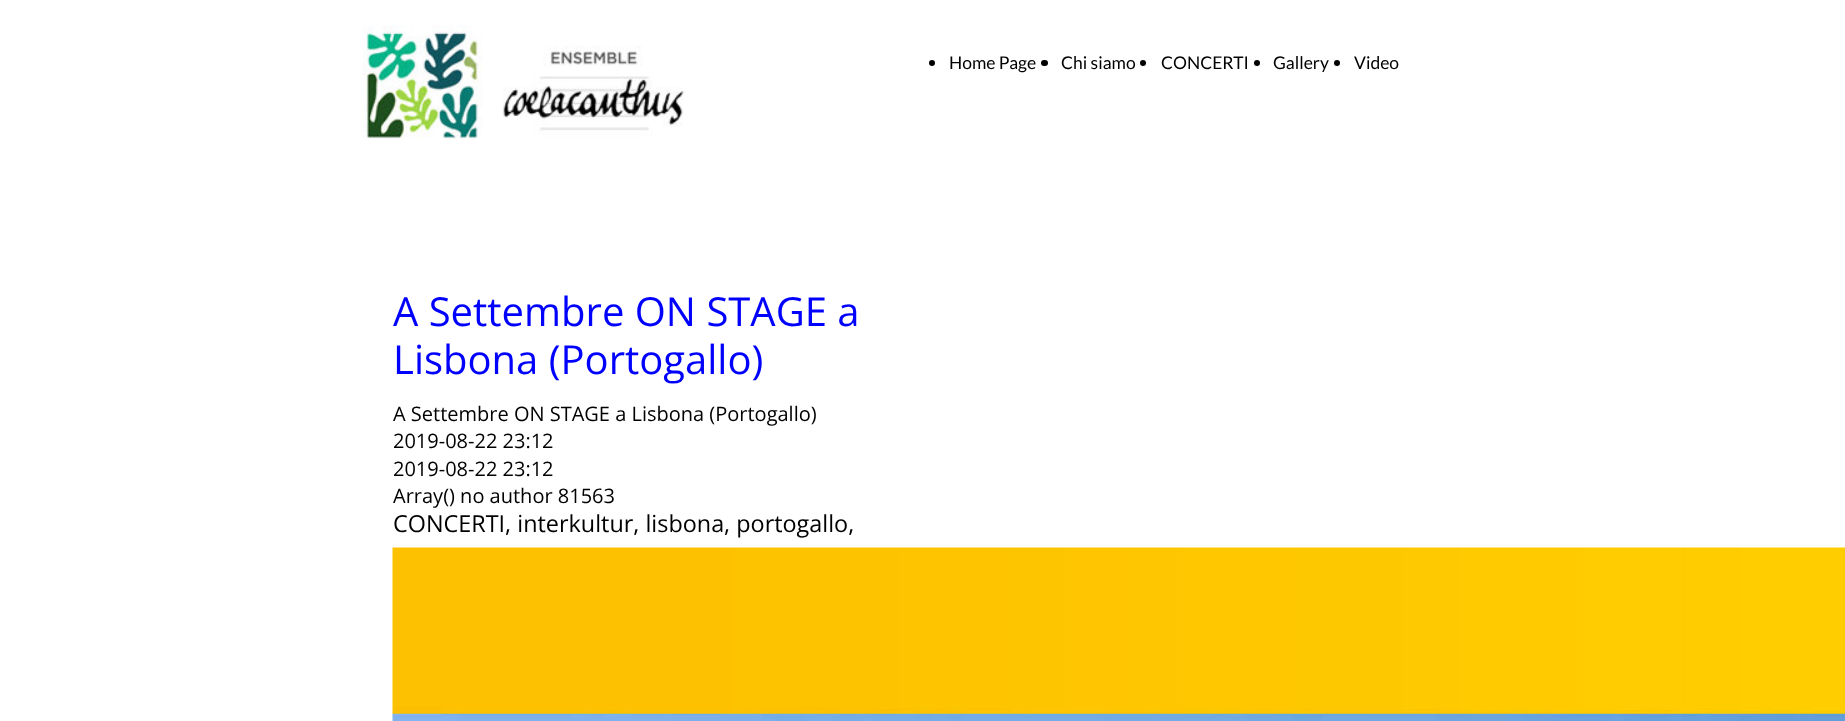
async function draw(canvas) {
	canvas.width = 1845;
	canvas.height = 721;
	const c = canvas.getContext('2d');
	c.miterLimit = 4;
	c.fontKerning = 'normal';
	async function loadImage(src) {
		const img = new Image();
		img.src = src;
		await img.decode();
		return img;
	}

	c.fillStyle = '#fff';
	c.fillRect(0, 0, 1845, 721);
	c.drawImage(await loadImage('img1.png'), 362, 25, 323, 115);
	c.fillStyle = '#000';
	c.beginPath();
	c.arc(932, 63, 3, 0, 2 * Math.PI);
	c.fill();
	c.font = '17.5px Lato';
	c.fillText('Home Page', 949, 69);
	c.beginPath();
	c.roundRect(1041, 60, 7, 6, 3);
	c.fill();
	c.fillText('Chi siamo', 1061, 69);
	c.beginPath();
	c.arc(1143, 63, 3, 0, 2 * Math.PI);
	c.fill();
	c.fillText('CONCERTI', 1161, 69);
	c.beginPath();
	c.arc(1257, 63, 3, 0, 2 * Math.PI);
	c.fill();
	c.fillText('Gallery', 1273, 69);
	c.beginPath();
	c.arc(1337, 63, 3, 0, 2 * Math.PI);
	c.fill();
	c.fillText('Video', 1354, 69);
	c.font = '40px Open Sans';
	c.fillStyle = '#00f';
	c.fillText('A Settembre ON STAGE a', 393, 326);
	c.fillText('Lisbona (Portogallo)', 393, 374);
	c.font = '20px Open Sans';
	c.fillStyle = '#000';
	for (const [text, x, y] of [
		['A Settembre ON STAGE a Lisbona (Portogallo)', 393, 421],
		['2019-08-22 23:12', 393, 448],
		['2019-08-22 23:12', 393, 476],
		['Array() no author 81563', 393, 503],
	]) {
		c.fillText(text, x, y);
	}
	c.font = '23.4px Open Sans';
	c.fillText('CONCERTI, interkultur, lisbona, portogallo,', 393, 532);
	c.drawImage(await loadImage('img2.png'), 392, 547, 1453, 174);
}

draw(document.querySelector('canvas'));
